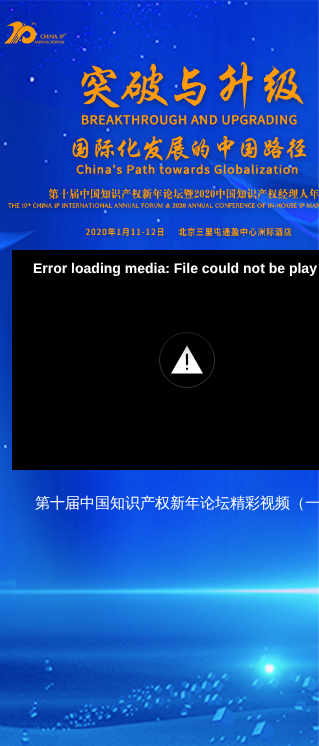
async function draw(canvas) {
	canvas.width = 319;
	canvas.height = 746;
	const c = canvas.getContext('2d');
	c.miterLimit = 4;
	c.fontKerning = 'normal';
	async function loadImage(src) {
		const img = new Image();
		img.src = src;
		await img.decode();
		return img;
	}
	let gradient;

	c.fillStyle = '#fff';
	c.fillRect(0, 0, 319, 746);
	c.drawImage(await loadImage('img1.png'), 0, 0, 319, 746);
	c.drawImage(await loadImage('img2.png'), 4, 21, 315, 218);
	c.fillStyle = '#000';
	c.fillRect(12, 271, 307, 199);
	c.beginPath();
	c.arc(187, 360, 27.5, 0, 2 * Math.PI);
	c.strokeStyle = '#333';
	c.stroke();
	c.drawImage(await loadImage('img3.png'), 171, 345, 32, 29);
	gradient = c.createLinearGradient(187, 250, 187, 362);
	gradient.addColorStop(0, '#000');
	gradient.addColorStop(0.18, '#000');
	gradient.addColorStop(1, '#00000000');
	c.fillStyle = gradient;
	c.fillRect(12, 250, 307, 110);
	c.font = 'bold 14px Liberation Sans';
	c.fillStyle = '#fff';
	c.fillText('Error loading media: File could not be play', 33, 273);
	c.font = '500 15px WenQuanYi Zen Hei';
	c.fillText('第十届中国知识产权新年论坛精彩视频（一', 35, 508);
}

draw(document.querySelector('canvas'));
